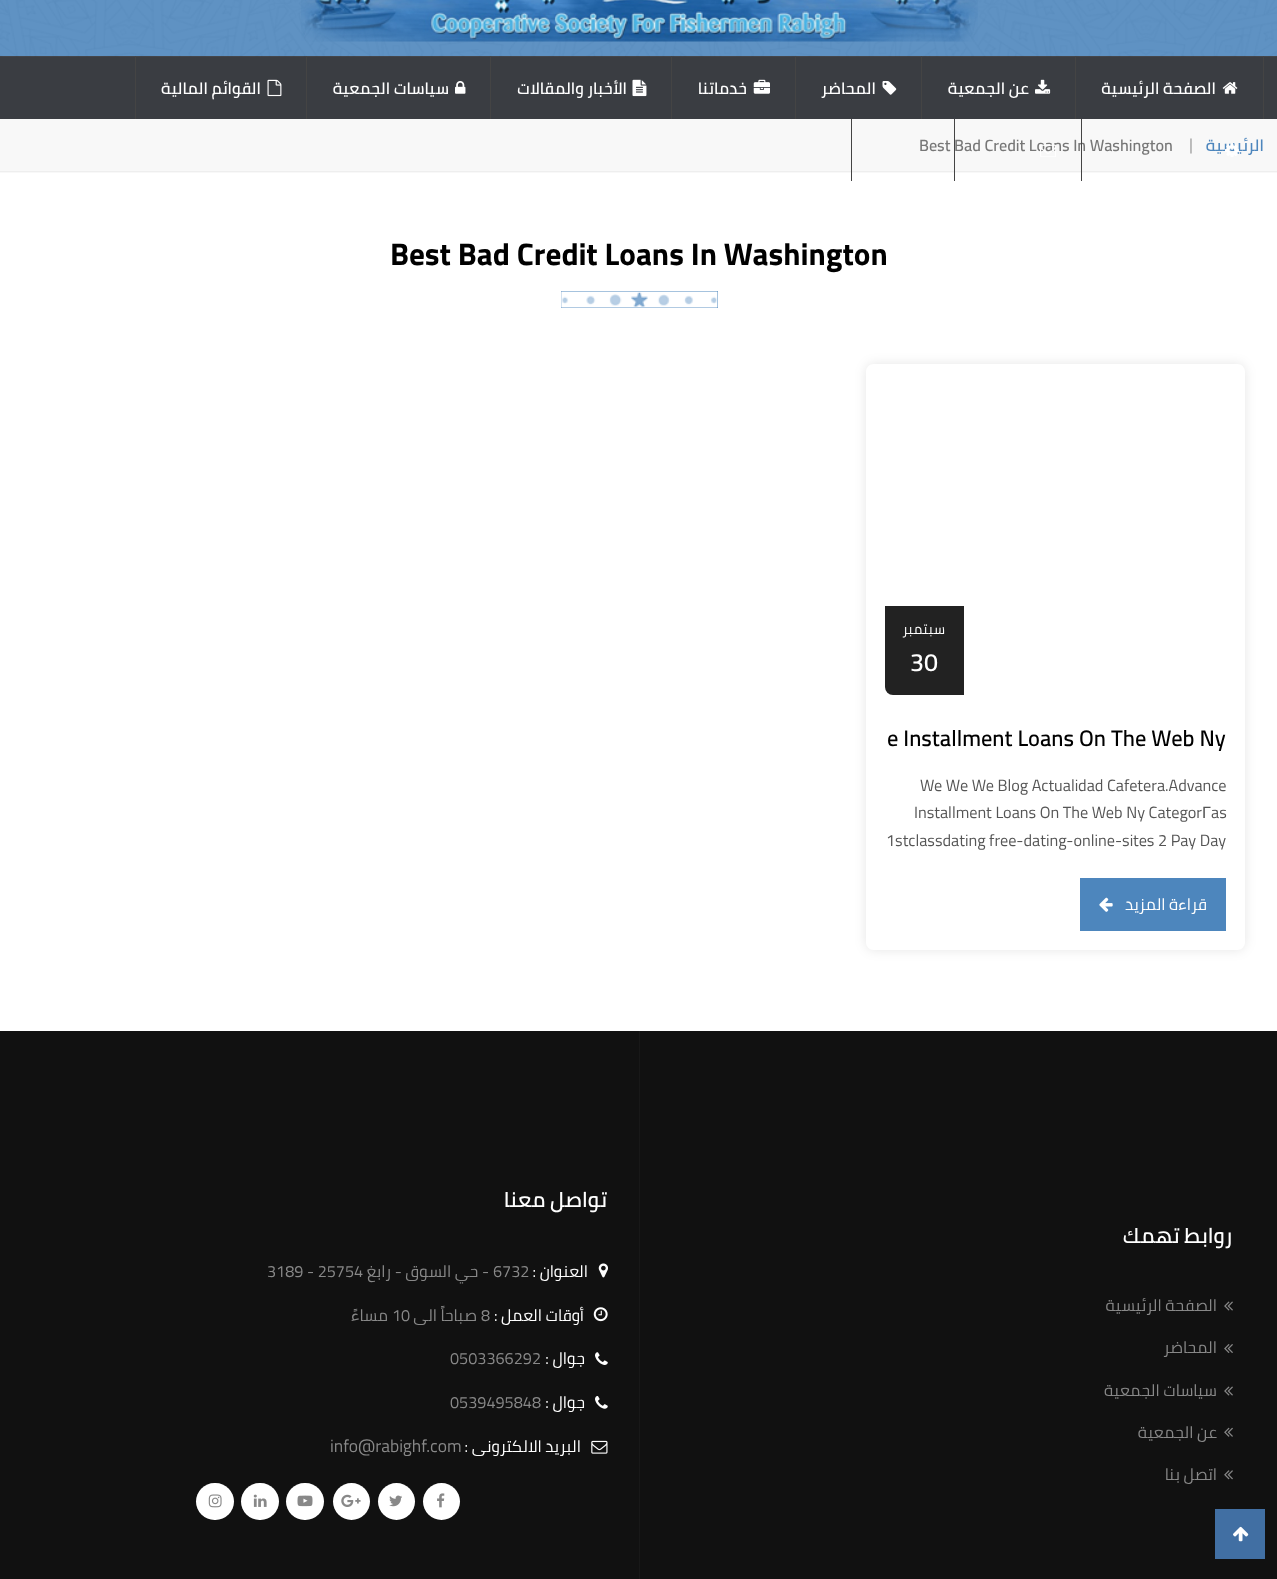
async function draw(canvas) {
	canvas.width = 1277;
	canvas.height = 1579;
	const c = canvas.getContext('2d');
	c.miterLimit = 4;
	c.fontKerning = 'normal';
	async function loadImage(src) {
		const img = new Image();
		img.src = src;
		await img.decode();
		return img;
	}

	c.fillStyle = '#fff';
	c.fillRect(0, 0, 1277, 1579);
	c.fillStyle = '#4d86bd';
	c.fillRect(0, 0, 1277, 56);
	c.fillStyle = '#3a3d42';
	c.fillRect(0, 56, 1277, 63);
	c.drawImage(await loadImage('img1.png'), 0, 0, 1277, 57);
	c.drawImage(await loadImage('img2.png'), 301, 0, 677, 42);
	c.fillStyle = '#444';
	c.fillRect(135, 56, 1, 63);
	c.direction = 'rtl';
	c.font = '600 16.25px Cairo';
	c.fillStyle = '#fff';
	c.fillText('القوائم المالية', 261, 94);
	c.drawImage(await loadImage('img3.png'), 267, 79, 15, 18);
	c.fillStyle = '#444';
	c.fillRect(306, 56, 1, 63);
	c.fillStyle = '#fff';
	c.fillText('سياسات الجمعية', 449, 94);
	c.drawImage(await loadImage('img4.png'), 455, 81, 11, 13);
	c.fillStyle = '#444';
	c.fillRect(490, 56, 1, 63);
	c.fillStyle = '#fff';
	c.fillText('الأخبار والمقالات', 627, 94);
	c.drawImage(await loadImage('img5.png'), 632, 79, 15, 18);
	c.fillStyle = '#444';
	c.fillRect(671, 56, 1, 63);
	c.fillStyle = '#fff';
	c.fillText('خدماتنا', 747, 94);
	c.drawImage(await loadImage('img6.png'), 753, 79, 17, 15);
	c.fillStyle = '#444';
	c.fillRect(795, 56, 1, 63);
	c.fillStyle = '#fff';
	c.fillText('المحاضر', 876, 94);
	c.drawImage(await loadImage('img7.png'), 882, 81, 15, 14);
	c.fillStyle = '#444';
	c.fillRect(921, 56, 1, 63);
	c.fillStyle = '#fff';
	c.fillText('عن الجمعية', 1029, 94);
	c.drawImage(await loadImage('img8.png'), 1035, 79, 16, 15);
	c.fillStyle = '#444';
	c.fillRect(1263, 56, 1, 63);
	c.fillRect(1075, 56, 1, 63);
	c.fillStyle = '#fff';
	c.fillText('الصفحة الرئيسية', 1216, 94);
	c.drawImage(await loadImage('img9.png'), 1222, 82, 16, 12);
	for (const [x, y, w, h, color] of [
		[0, 119, 1277, 54, '#f8f8f8'],
		[0, 171, 1277, 1, '#eee'],
		[851, 119, 1, 62, '#444'],
	]) {
		c.fillStyle = color;
		c.fillRect(x, y, w, h);
	}
	c.direction = 'ltr';
	c.fillStyle = '#777';
	c.fillText('Best Bad Credit Loans In Washington', 919, 151);
	c.fillStyle = '#444';
	c.fillRect(954, 119, 1, 62);
	c.drawImage(await loadImage('img10.png'), 1040, 144, 16, 13);
	c.fillRect(1081, 119, 1, 62);
	c.direction = 'rtl';
	c.fillStyle = '#4d86bd';
	c.fillText('الرئيسية', 1264, 151);
	c.drawImage(await loadImage('img11.png'), 1225, 143, 14, 14);
	c.direction = 'ltr';
	c.fillStyle = '#aaa';
	c.fillText('|', 1189, 150);
	c.font = 'bold 31.25px Cairo';
	c.fillStyle = '#000';
	c.fillText('Best Bad Credit Loans In Washington', 390, 265);
	c.fillStyle = '#4d86bd';
	c.fillRect(561, 291, 157, 17);
	c.drawImage(await loadImage('img12.png'), 561, 291, 157, 17);
	c.save();
	c.beginPath();
	c.moveTo(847, 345);
	c.lineTo(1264, 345);
	c.lineTo(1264, 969);
	c.lineTo(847, 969);
	c.closePath();
	c.moveTo(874, 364);
	c.lineTo(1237, 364);
	c.bezierCurveTo(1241.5, 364, 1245, 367.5, 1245, 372);
	c.lineTo(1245, 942);
	c.bezierCurveTo(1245, 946.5, 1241.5, 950, 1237, 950);
	c.lineTo(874, 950);
	c.bezierCurveTo(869.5, 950, 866, 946.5, 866, 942);
	c.lineTo(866, 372);
	c.bezierCurveTo(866, 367.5, 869.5, 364, 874, 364);
	c.closePath();
	c.clip('evenodd');
	c.fillStyle = '#0000001a';
	c.filter = 'blur(6px)';
	c.beginPath();
	c.roundRect(866, 364, 379, 586, 8);
	c.fill();
	c.filter = 'none';
	c.restore();
	c.fillStyle = '#222';
	c.beginPath();
	c.roundRect(885, 606, 79, 89, [0, 0, 0, 8]);
	c.fill();
	c.direction = 'rtl';
	c.font = '14px Cairo';
	c.fillStyle = '#fff';
	c.fillText('سبتمبر', 945, 634);
	c.direction = 'ltr';
	c.font = '600 25px Cairo';
	c.fillText('30', 910, 671);
	c.font = '600 22.5px Cairo';
	c.fillStyle = '#000';
	c.fillText('e Installment Loans On The Web Ny', 887, 746);
	c.font = '16.25px Cairo';
	c.fillStyle = '#555';
	c.fillText('We We We Blog Actualidad Cafetera.Advance', 920, 791);
	c.fillText('Installment Loans On The Web Ny Categor', 914, 818);
	c.font = '16.25px Liberation Sans';
	c.fillText('Г', 1202, 818);
	c.font = '16.25px Cairo';
	c.fillText('as', 1211, 818);
	c.fillText('1stclassdating free-dating-online-sites 2 Pay Day', 886, 846);
	c.fillStyle = '#4d86bd';
	c.fillRect(1080, 878, 146, 53);
	c.drawImage(await loadImage('img13.png'), 1099, 897, 14, 15);
	c.direction = 'rtl';
	c.fillStyle = '#fff';
	c.fillText('قراءة المزيد', 1207, 910);
	c.fillStyle = '#111';
	c.fillRect(0, 1031, 1277, 548);
	c.font = '600 21.25px Cairo';
	c.fillStyle = '#fff';
	c.fillText('تواصل معنا', 607, 1207);
	c.direction = 'ltr';
	c.font = '16.25px Cairo';
	c.fillStyle = '#888';
	c.fillText('3189 - 25754', 267, 1277);
	c.direction = 'rtl';
	c.fillText('- حي السوق - رابغ', 489, 1277);
	c.direction = 'ltr';
	c.fillText('6732', 493, 1277);
	c.direction = 'rtl';
	c.fillStyle = '#fff';
	c.fillText('العنوان :', 588, 1277);
	c.drawImage(await loadImage('img14.png'), 598, 1263, 10, 15);
	c.fillStyle = '#888';
	c.fillText('مساءً', 388, 1321);
	c.direction = 'ltr';
	c.fillText('10', 392, 1321);
	c.direction = 'rtl';
	c.fillText('صباحاً الى', 477, 1321);
	c.direction = 'ltr';
	c.fillText('8', 481, 1321);
	c.direction = 'rtl';
	c.fillStyle = '#fff';
	c.fillText('أوقات العمل :', 584, 1321);
	c.drawImage(await loadImage('img15.png'), 593, 1307, 15, 15);
	c.direction = 'ltr';
	c.fillStyle = '#888';
	c.fillText('0503366292', 450, 1364);
	c.direction = 'rtl';
	c.fillStyle = '#fff';
	c.fillText('جوال :', 585, 1364);
	c.drawImage(await loadImage('img16.png'), 595, 1352, 13, 13);
	c.direction = 'ltr';
	c.fillStyle = '#888';
	c.fillText('0539495848', 450, 1408);
	c.direction = 'rtl';
	c.fillStyle = '#fff';
	c.fillText('جوال :', 585, 1408);
	c.drawImage(await loadImage('img17.png'), 595, 1396, 13, 13);
	c.direction = 'ltr';
	c.font = '17.5px Cairo';
	c.fillStyle = '#888';
	c.fillText('info@rabighf.com', 330, 1452);
	c.direction = 'rtl';
	c.font = '16.25px Cairo';
	c.fillStyle = '#fff';
	c.fillText('البريد الالكترونى :', 581, 1452);
	c.drawImage(await loadImage('img18.png'), 591, 1440, 17, 14);
	c.beginPath();
	c.roundRect(196, 1483, 38, 37, 18.5);
	c.fill();
	c.drawImage(await loadImage('img19.png'), 208, 1494, 14, 14);
	c.beginPath();
	c.roundRect(241, 1483, 38, 37, 18.5);
	c.fill();
	c.drawImage(await loadImage('img20.png'), 253, 1494, 14, 13);
	c.beginPath();
	c.roundRect(286, 1483, 38, 37, 18.5);
	c.fill();
	c.drawImage(await loadImage('img21.png'), 297, 1495, 16, 12);
	c.beginPath();
	c.arc(351.5, 1501.5, 18.5, 0, 2 * Math.PI);
	c.fill();
	c.drawImage(await loadImage('img22.png'), 341, 1494, 20, 13);
	c.beginPath();
	c.arc(396.5, 1501.5, 18.5, 0, 2 * Math.PI);
	c.fill();
	c.drawImage(await loadImage('img23.png'), 389, 1495, 13, 12);
	c.beginPath();
	c.arc(441.5, 1501.5, 18.5, 0, 2 * Math.PI);
	c.fill();
	c.drawImage(await loadImage('img24.png'), 437, 1493, 8, 15);
	c.fillStyle = '#181818';
	c.fillRect(639, 1031, 1, 548);
	c.font = '600 21.25px Cairo';
	c.fillStyle = '#fff';
	c.fillText('روابط تهمك', 1232, 1243);
	c.font = '16.25px Cairo';
	c.fillStyle = '#888';
	c.fillText('الصفحة الرئيسية', 1217, 1311);
	c.drawImage(await loadImage('img25.png'), 1224, 1301, 9, 10);
	c.fillText('المحاضر', 1217, 1353);
	c.drawImage(await loadImage('img26.png'), 1224, 1344, 9, 9);
	c.fillText('سياسات الجمعية', 1217, 1396);
	c.drawImage(await loadImage('img25.png'), 1224, 1386, 9, 10);
	c.fillText('عن الجمعية', 1217, 1438);
	c.drawImage(await loadImage('img27.png'), 1224, 1427, 9, 10);
	c.fillText('اتصل بنا', 1217, 1480);
	c.drawImage(await loadImage('img28.png'), 1224, 1470, 9, 10);
	c.fillStyle = '#416fa3';
	c.fillRect(1215, 1509, 50, 50);
	c.drawImage(await loadImage('img29.png'), 1233, 1526, 16, 16);
}

draw(document.querySelector('canvas'));
